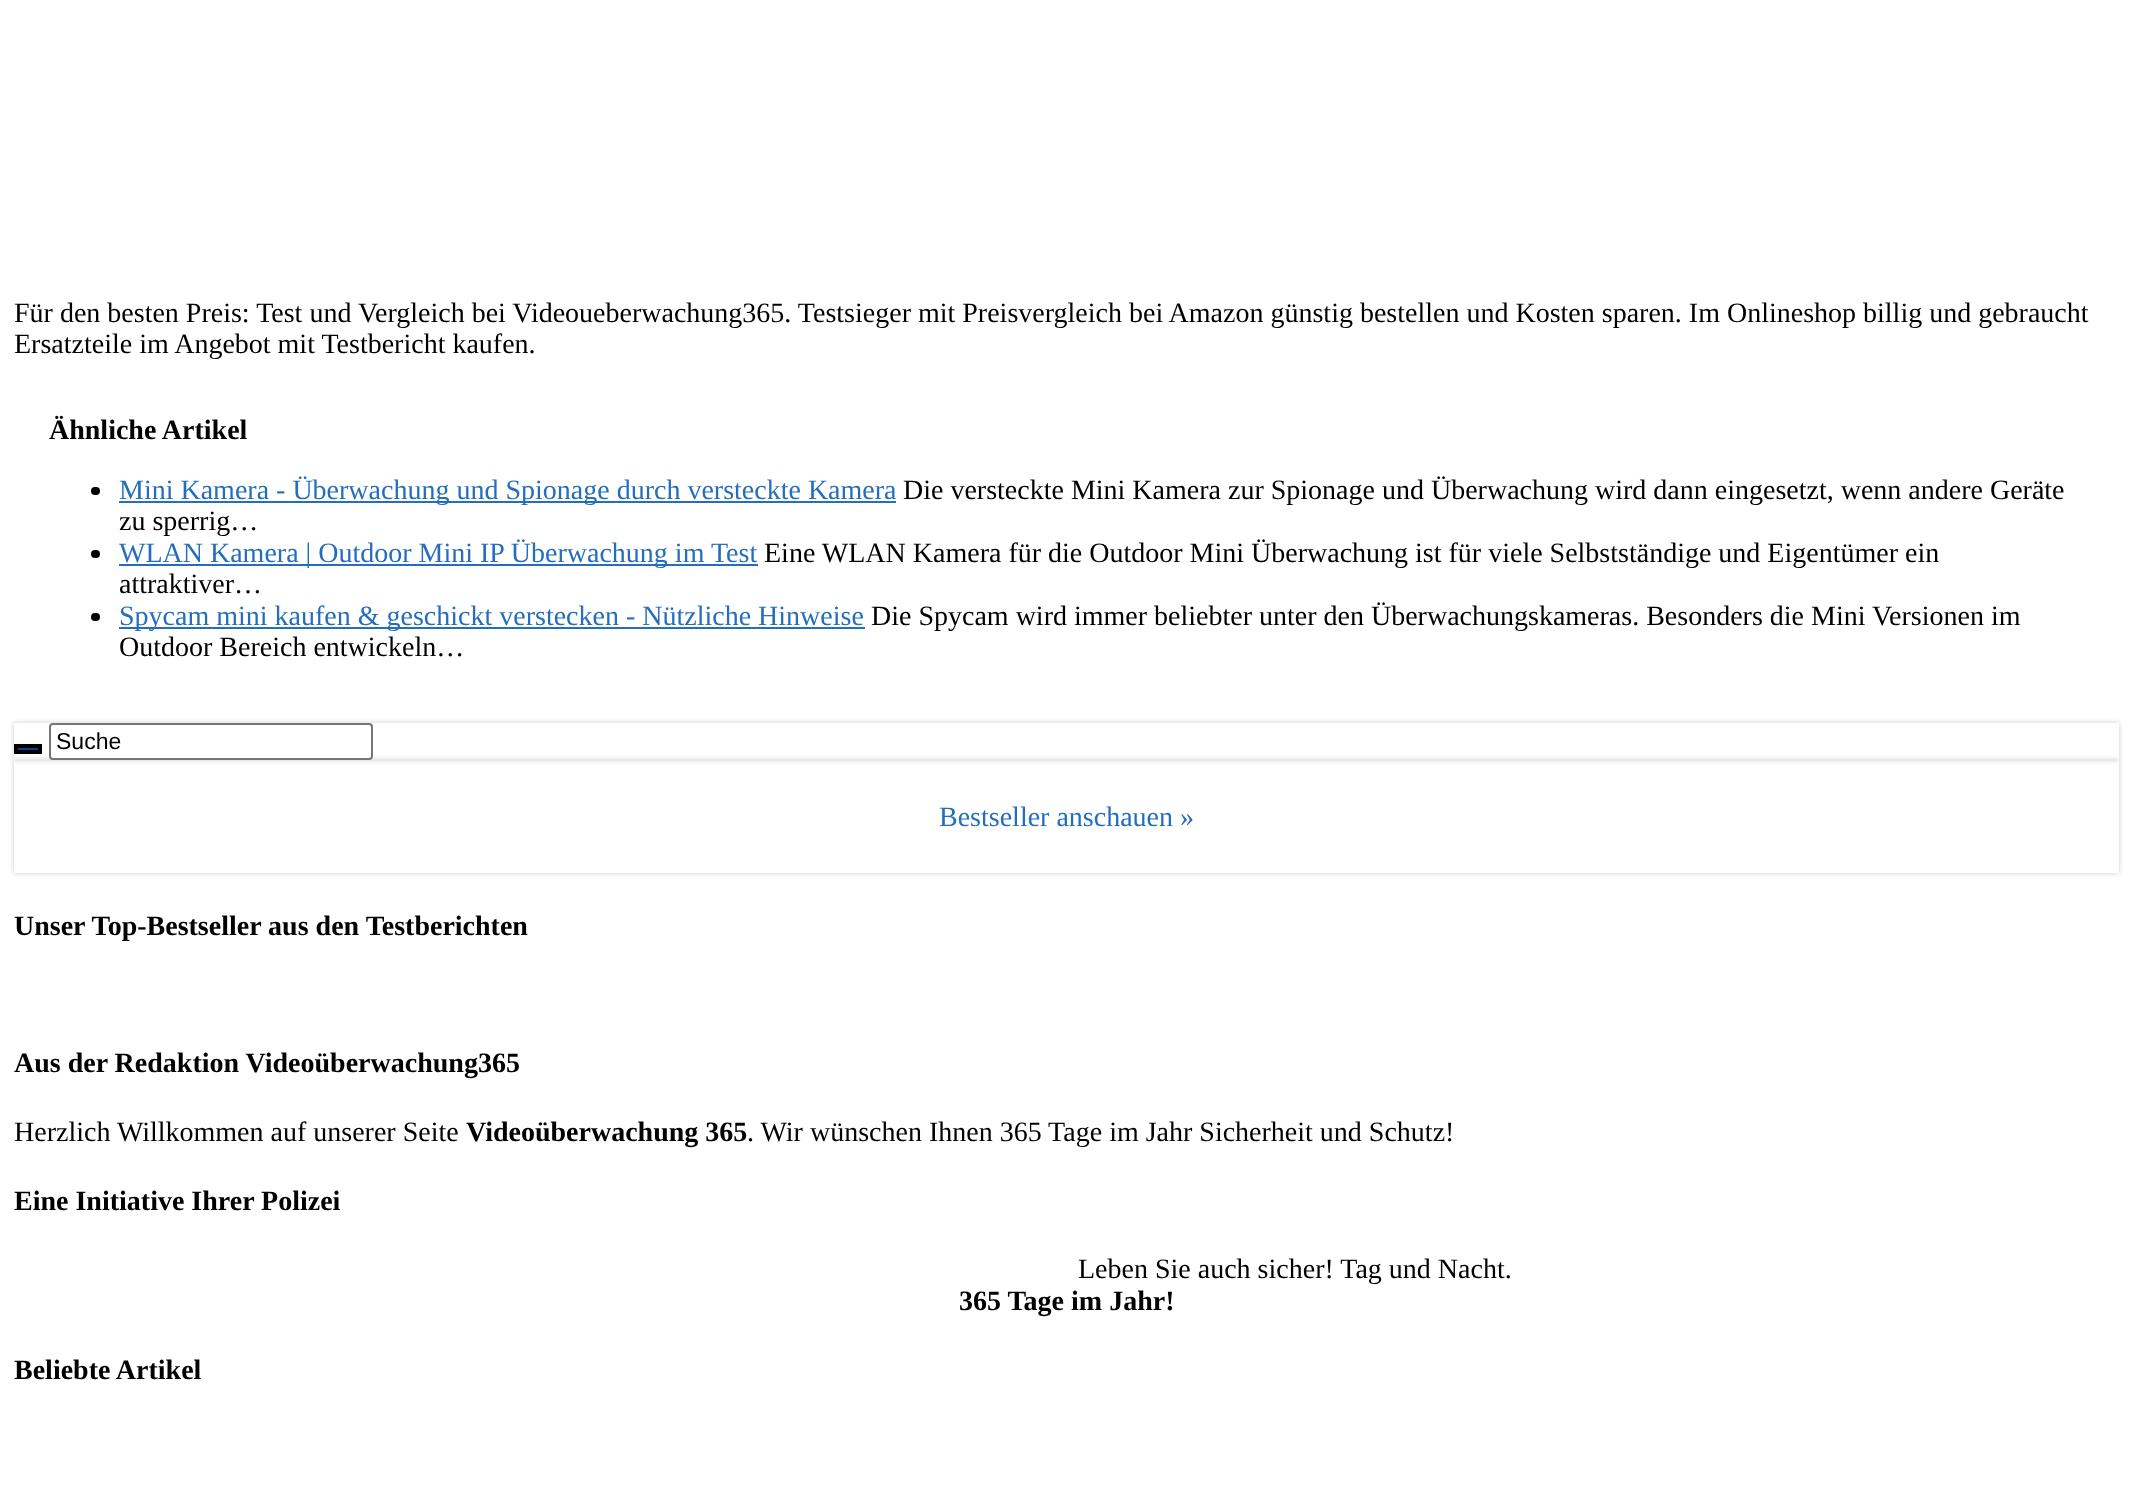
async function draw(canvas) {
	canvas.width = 2133;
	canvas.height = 1512;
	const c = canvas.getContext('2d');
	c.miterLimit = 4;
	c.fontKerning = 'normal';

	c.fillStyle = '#fff';
	c.fillRect(0, 0, 2133, 1512);
	c.font = '28px Liberation Serif';
	c.fillStyle = '#000';
	c.fillText('Für den besten Preis: Test und Vergleich bei Videoueberwachung365. Testsieger mit Preisvergleich bei Amazon günstig bestellen und Kosten sparen. Im Onlineshop billig und gebraucht', 14, 322);
	c.fillText('Ersatzteile im Angebot mit Testbericht kaufen.', 14, 353);
	c.font = 'bold 28px Liberation Serif';
	c.fillText('Ähnliche Artikel', 49, 439);
	c.beginPath();
	c.roundRect(91, 487, 9, 8, 4);
	c.fill();
	c.fillStyle = '#246ebd';
	c.fillRect(119, 501, 777, 2);
	c.font = '28px Liberation Serif';
	c.fillText('Mini Kamera - Überwachung und Spionage durch versteckte Kamera', 119, 499);
	c.fillStyle = '#000';
	c.fillText('Die versteckte Mini Kamera zur Spionage und Überwachung wird dann eingesetzt, wenn andere Geräte', 903, 499);
	c.fillText('zu sperrig…', 119, 530);
	c.beginPath();
	c.roundRect(91, 550, 9, 8, 4);
	c.fill();
	c.fillStyle = '#246ebd';
	c.fillRect(119, 564, 639, 2);
	c.fillText('WLAN Kamera | Outdoor Mini IP Überwachung im Test', 119, 562);
	c.fillStyle = '#000';
	c.fillText('Eine WLAN Kamera für die Outdoor Mini Überwachung ist für viele Selbstständige und Eigentümer ein', 764, 562);
	c.fillText('attraktiver…', 119, 593);
	c.beginPath();
	c.roundRect(91, 613, 9, 8, 4);
	c.fill();
	c.fillStyle = '#246ebd';
	c.fillRect(119, 627, 746, 2);
	c.fillText('Spycam mini kaufen & geschickt verstecken - Nützliche Hinweise', 119, 625);
	c.fillStyle = '#000';
	c.fillText('Die Spycam wird immer beliebter unter den Überwachungskameras. Besonders die Mini Versionen im', 871, 625);
	c.fillText('Outdoor Bereich entwickeln…', 119, 656);
	c.save();
	c.beginPath();
	c.moveTo(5, 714);
	c.lineTo(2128, 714);
	c.lineTo(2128, 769);
	c.lineTo(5, 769);
	c.closePath();
	c.moveTo(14, 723);
	c.lineTo(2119, 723);
	c.lineTo(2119, 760);
	c.lineTo(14, 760);
	c.closePath();
	c.clip('evenodd');
	c.fillStyle = '#cacaca';
	c.filter = 'blur(2.5px)';
	c.beginPath();
	c.rect(14, 723, 2105, 37);
	c.fill();
	c.filter = 'none';
	c.restore();
	c.save();
	c.beginPath();
	c.moveTo(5, 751);
	c.lineTo(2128, 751);
	c.lineTo(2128, 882);
	c.lineTo(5, 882);
	c.closePath();
	c.moveTo(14, 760);
	c.lineTo(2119, 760);
	c.lineTo(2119, 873);
	c.lineTo(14, 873);
	c.closePath();
	c.clip('evenodd');
	c.fillStyle = '#cacaca';
	c.filter = 'blur(2.5px)';
	c.beginPath();
	c.rect(14, 760, 2105, 113);
	c.fill();
	c.filter = 'none';
	c.restore();
	c.fillStyle = '#04448c';
	c.beginPath();
	c.rect(16, 746, 24, 6);
	c.fill();
	c.strokeStyle = '#000';
	c.lineWidth = 4;
	c.stroke();
	c.fillStyle = '#fff';
	c.beginPath();
	c.roundRect(50, 724, 322, 35, 3);
	c.fill();
	c.strokeStyle = '#767676';
	c.lineWidth = 2;
	c.stroke();
	c.font = '23px Liberation Sans';
	c.fillStyle = '#000';
	c.fillText('Suche', 56, 749);
	c.font = '28px Liberation Serif';
	c.fillStyle = '#246ebd';
	c.fillText('Bestseller anschauen »', 939, 826);
	c.font = 'bold 28px Liberation Serif';
	c.fillStyle = '#000';
	c.fillText('Unser Top-Bestseller aus den Testberichten', 14, 935);
	c.fillText('Aus der Redaktion Videoüberwachung365', 14, 1072);
	c.font = '28px Liberation Serif';
	c.fillText('Herzlich Willkommen auf unserer Seite', 14, 1141);
	c.font = 'bold 28px Liberation Serif';
	c.fillText('Videoüberwachung 365', 466, 1141);
	c.font = '28px Liberation Serif';
	c.fillText('. Wir wünschen Ihnen 365 Tage im Jahr Sicherheit und Schutz!', 747, 1141);
	c.font = 'bold 28px Liberation Serif';
	c.fillText('Eine Initiative Ihrer Polizei', 14, 1210);
	c.font = '28px Liberation Serif';
	c.fillText('Leben Sie auch sicher! Tag und Nacht.', 1078, 1278);
	c.font = 'bold 28px Liberation Serif';
	c.fillText('365 Tage im Jahr!', 959, 1310);
	c.fillText('Beliebte Artikel', 14, 1379);
}

draw(document.querySelector('canvas'));
